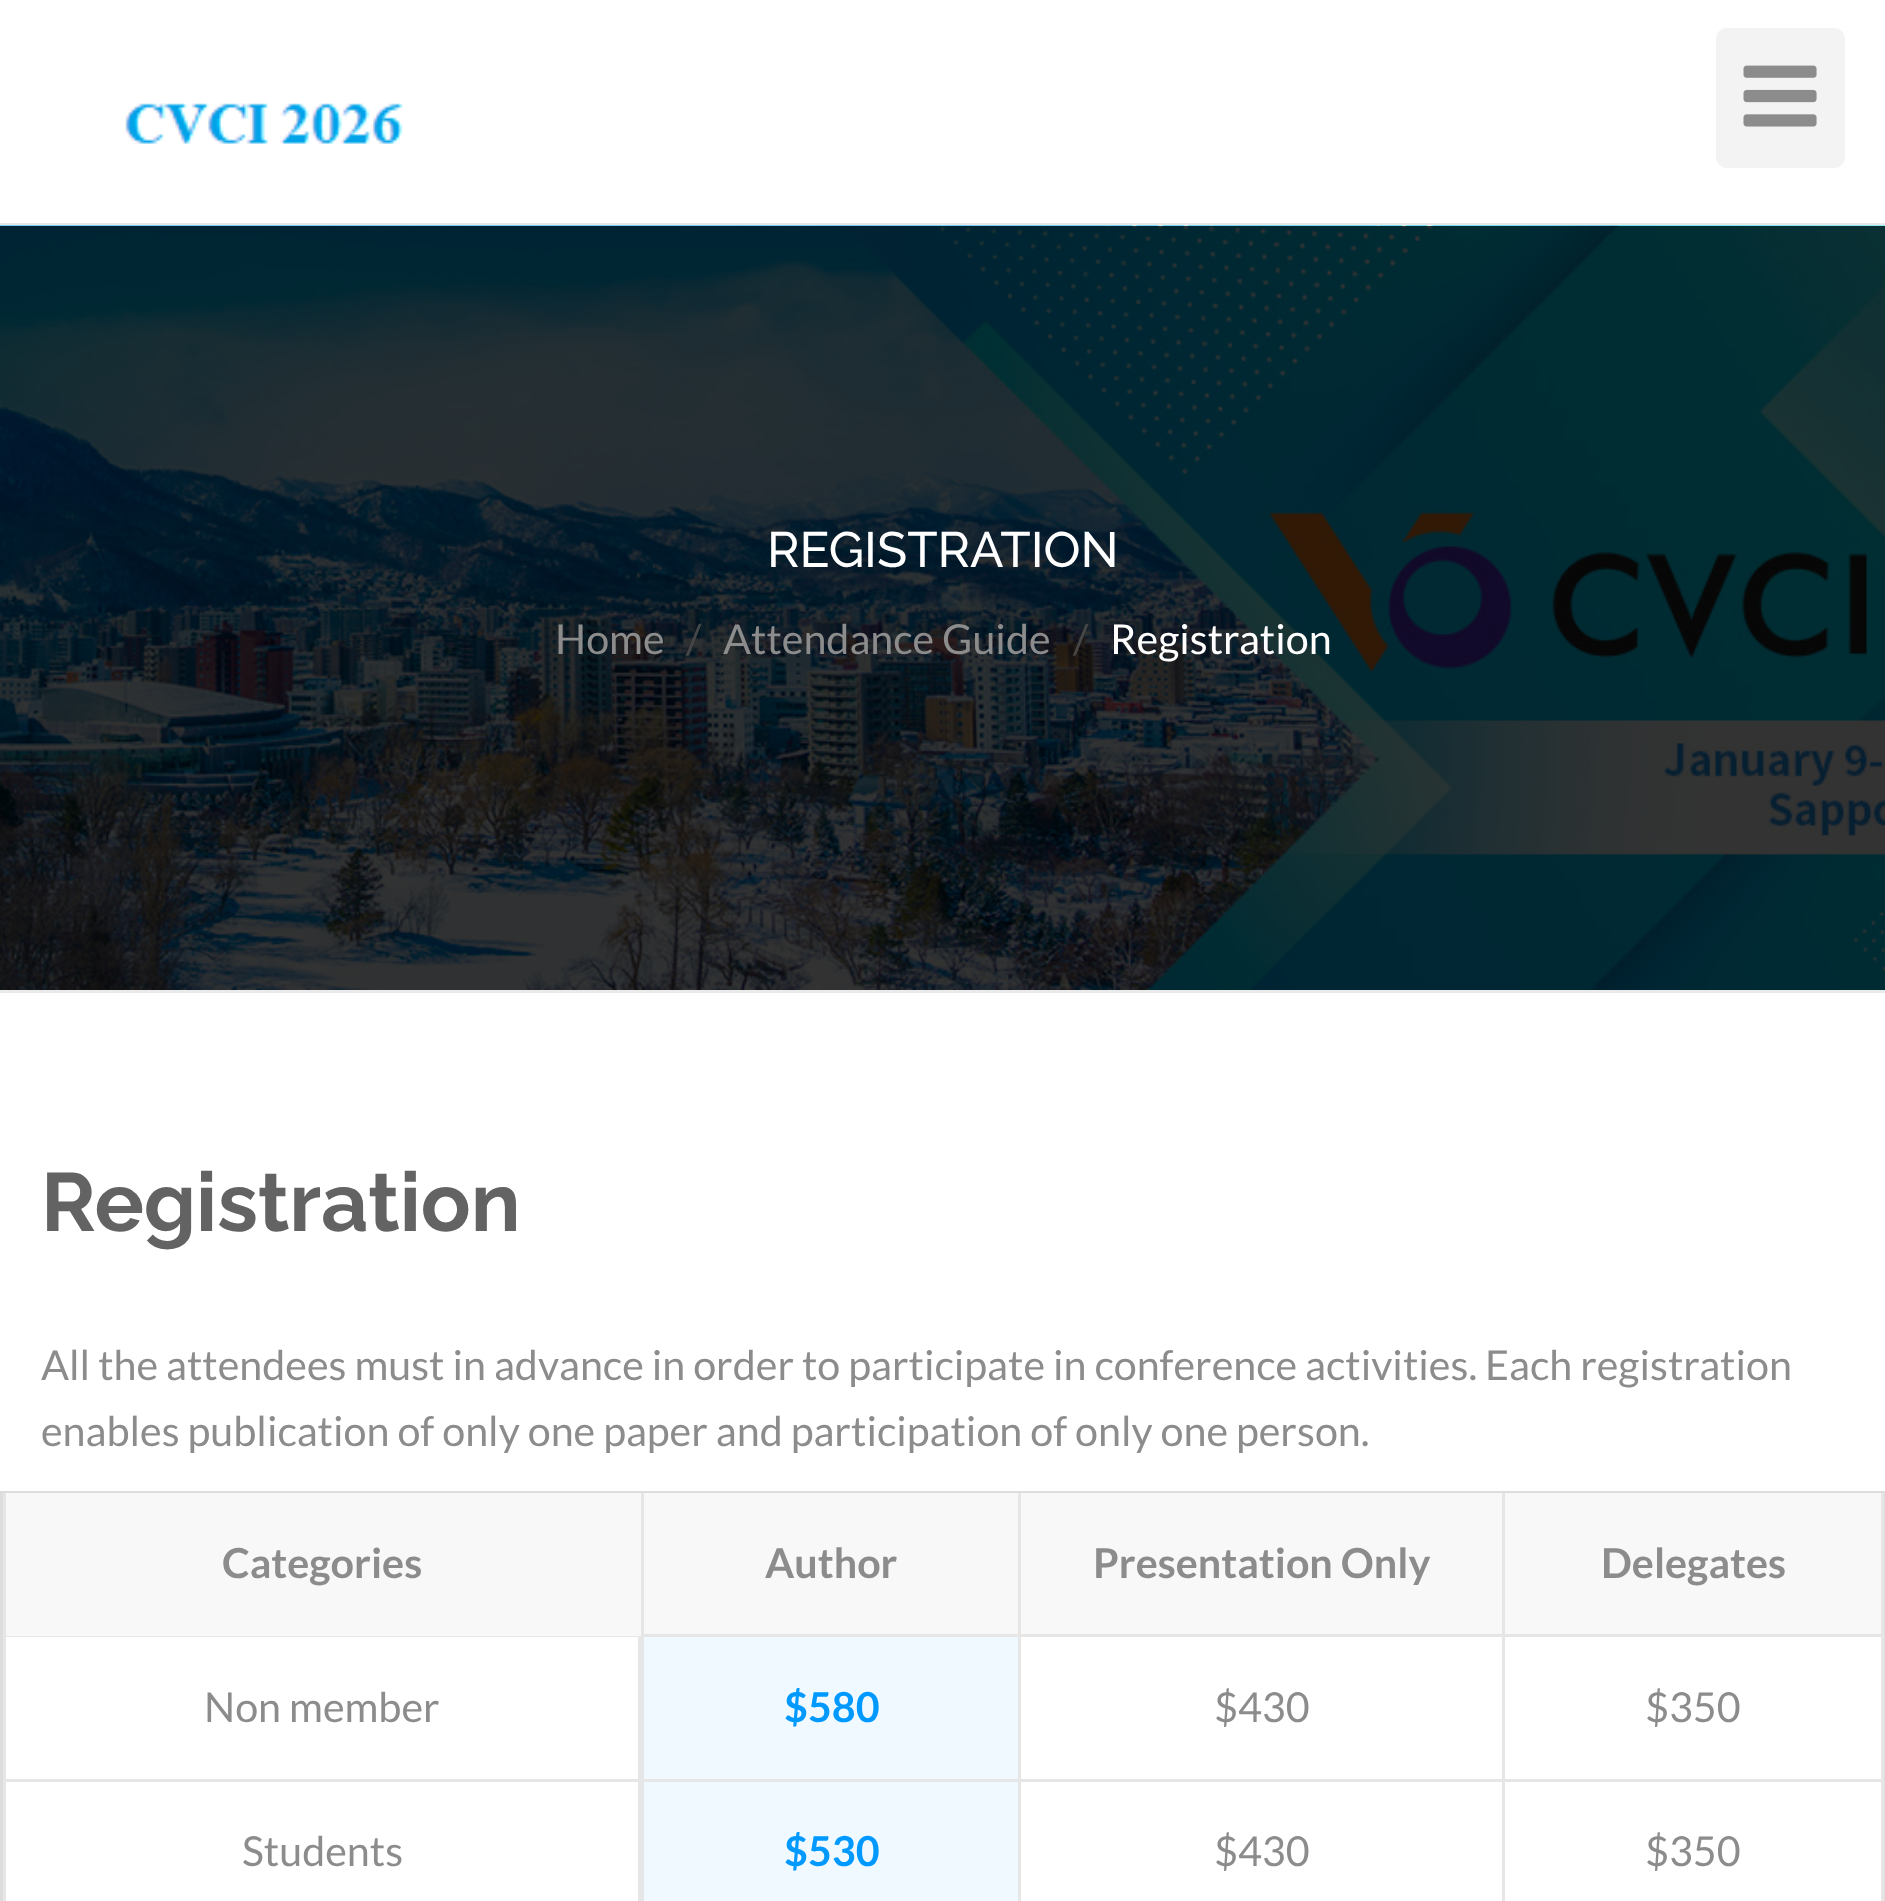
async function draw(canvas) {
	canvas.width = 1885;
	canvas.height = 1901;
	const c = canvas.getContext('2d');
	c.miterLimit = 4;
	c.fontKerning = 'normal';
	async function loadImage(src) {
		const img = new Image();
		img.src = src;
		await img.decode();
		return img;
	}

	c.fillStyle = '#fff';
	c.fillRect(0, 0, 1885, 1901);
	c.fillStyle = '#e7e7e7';
	c.fillRect(0, 223, 1885, 3);
	c.drawImage(await loadImage('img1.png'), 124, 103, 279, 41);
	c.fillStyle = '#f3f3f3';
	c.beginPath();
	c.roundRect(1716, 28, 129, 140, 11);
	c.fill();
	c.drawImage(await loadImage('img2.png'), 1743, 65, 74, 62);
	c.drawImage(await loadImage('img3.png'), 0, 225, 1885, 765);
	c.fillStyle = '#eaeaea';
	c.fillRect(0, 990, 1885, 3);
	c.font = '500 49.5px Raleway';
	c.fillStyle = '#fff';
	c.fillText('REGISTRATION', 767, 567);
	c.font = '41.25px Lato';
	c.fillStyle = '#8c8c8c';
	c.fillText('Home', 555, 654);
	c.fillStyle = '#464646';
	c.fillText('/', 686, 654);
	c.fillStyle = '#8c8c8c';
	c.fillText('Attendance Guide', 723, 654);
	c.fillStyle = '#464646';
	c.fillText('/', 1073, 654);
	c.fillStyle = '#fff';
	c.fillText('Registration', 1110, 654);
	c.font = 'bold 82.5px Raleway';
	c.fillStyle = '#636363';
	c.fillText('Registration', 41, 1231);
	c.font = '41.25px Lato';
	c.fillStyle = '#8c8c8c';
	c.fillText('All the attendees must in advance in order to participate in conference activities. Each registration', 41, 1380);
	c.fillText('enables publication of only one paper and participation of only one person.', 41, 1446);
	c.strokeStyle = '#ddd';
	c.lineWidth = 3;
	c.strokeRect(1.5, 1492.5, 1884, 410);
	for (const [x, y, w, h, color] of [
		[1502, 1634, 382, 3, '#e6e6e6'],
		[1502, 1779, 382, 3, '#e6e6e6'],
		[1502, 1779, 3, 122, '#e6e6e6'],
		[1018, 1779, 486, 3, '#e6e6e6'],
		[1502, 1634, 3, 148, '#e6e6e6'],
		[1018, 1634, 486, 3, '#e6e6e6'],
		[1018, 1779, 3, 122, '#e6e6e6'],
		[3, 1779, 1017, 3, '#e6e6e6'],
		[1018, 1634, 3, 148, '#e6e6e6'],
		[641, 1634, 379, 3, '#e6e6e6'],
		[3, 1636, 641, 1, '#e6e6e6'],
		[638, 1493, 6, 408, '#e6e6e6'],
		[6, 1493, 635, 143, '#f8f8f8'],
	]) {
		c.fillStyle = color;
		c.fillRect(x, y, w, h);
	}
	c.font = 'bold 41.25px Lato';
	c.fillStyle = '#8c8c8c';
	c.fillText('Categories', 222, 1578);
	c.fillStyle = '#f8f8f8';
	c.fillRect(644, 1493, 374, 141);
	c.fillStyle = '#8c8c8c';
	c.fillText('Author', 765, 1578);
	c.fillStyle = '#f8f8f8';
	c.fillRect(1021, 1493, 481, 141);
	c.fillStyle = '#e6e6e6';
	c.fillRect(1018, 1493, 3, 143);
	c.fillStyle = '#8c8c8c';
	c.fillText('Presentation Only', 1093, 1578);
	c.fillStyle = '#f8f8f8';
	c.fillRect(1505, 1493, 376, 141);
	c.fillStyle = '#e6e6e6';
	c.fillRect(1502, 1493, 3, 143);
	c.fillStyle = '#8c8c8c';
	c.fillText('Delegates', 1601, 1578);
	c.fillStyle = '#e6e6e6';
	c.fillRect(3, 1779, 3, 122);
	c.fillRect(3, 1493, 3, 289);
	c.font = '41.25px Lato';
	c.fillStyle = '#8c8c8c';
	c.fillText('Non member', 204, 1722);
	c.fillStyle = '#f0f9ff';
	c.fillRect(644, 1637, 374, 142);
	c.font = 'bold 41.25px Lato';
	c.fillStyle = '#09f';
	c.fillText('$580', 784, 1722);
	c.font = '41.25px Lato';
	c.fillStyle = '#8c8c8c';
	c.fillText('$430', 1214, 1722);
	c.fillStyle = '#e6e6e6';
	c.fillRect(1881, 1779, 3, 122);
	c.fillRect(1881, 1493, 3, 289);
	c.fillStyle = '#8c8c8c';
	c.fillText('$350', 1645, 1722);
	c.fillText('Students', 242, 1866);
	c.fillStyle = '#f0f9ff';
	c.fillRect(644, 1782, 374, 119);
	c.font = 'bold 41.25px Lato';
	c.fillStyle = '#09f';
	c.fillText('$530', 784, 1866);
	c.font = '41.25px Lato';
	c.fillStyle = '#8c8c8c';
	c.fillText('$430', 1214, 1866);
	c.fillText('$350', 1645, 1866);
}

draw(document.querySelector('canvas'));
